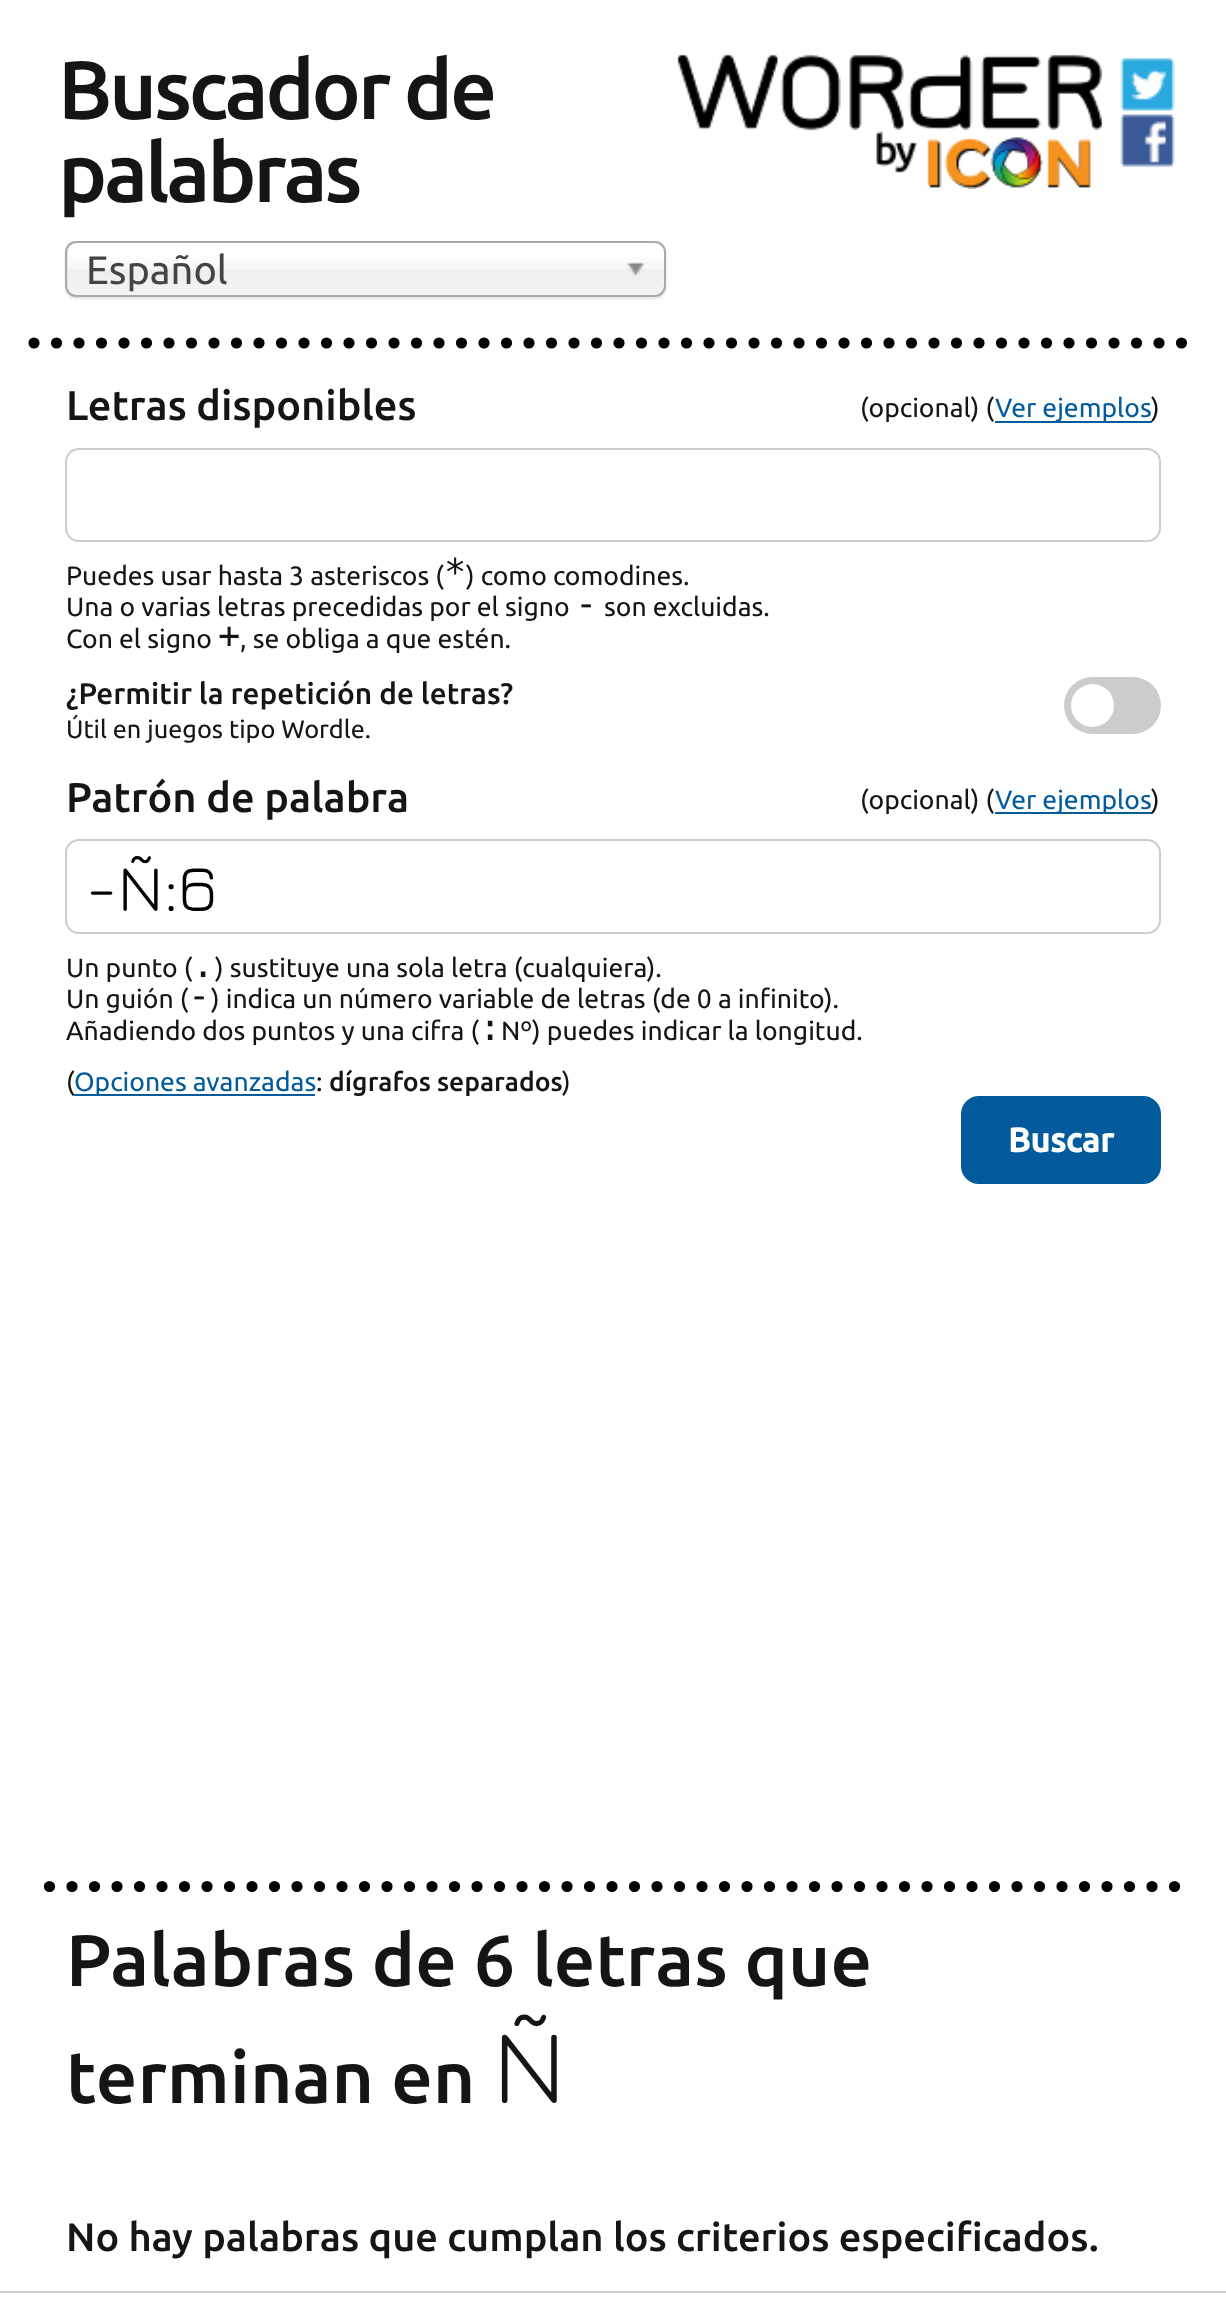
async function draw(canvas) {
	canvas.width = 1226;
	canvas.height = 2315;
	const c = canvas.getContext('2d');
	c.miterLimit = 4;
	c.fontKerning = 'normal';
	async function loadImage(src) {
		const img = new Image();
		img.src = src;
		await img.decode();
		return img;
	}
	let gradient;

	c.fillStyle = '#fff';
	c.fillRect(0, 0, 1226, 2315);
	c.beginPath();
	c.moveTo(34, 343);
	c.lineTo(1192.5, 343);
	c.strokeStyle = '#000';
	c.lineWidth = 11.2;
	c.lineCap = 'round';
	c.setLineDash([0, 22.5]);
	c.stroke();
	c.letterSpacing = '-3.25px';
	c.font = '500 82.75px Ubuntu';
	c.fillStyle = '#151515';
	c.fillText('Buscador de', 58, 119);
	c.fillText('palabras', 58, 202);
	c.drawImage(await loadImage('img1.png'), 677, 54, 426, 135);
	c.drawImage(await loadImage('img2.png'), 1120, 58, 55, 110);
	c.fillStyle = '#0000001a';
	c.filter = 'blur(1px)';
	c.beginPath();
	c.roundRect(65, 243, 601, 56, 11);
	c.fill();
	c.filter = 'none';
	gradient = c.createLinearGradient(366, 243, 366, 295);
	gradient.addColorStop(0.2, '#fff');
	gradient.addColorStop(0.5, '#f6f6f6');
	gradient.addColorStop(0.52, '#eee');
	gradient.addColorStop(1, '#f4f4f4');
	c.fillStyle = gradient;
	c.beginPath();
	c.roundRect(68, 243, 596, 52, 9);
	c.fill();
	c.beginPath();
	c.roundRect(66, 242, 599, 54, 10);
	c.strokeStyle = '#aaa';
	c.lineWidth = 2;
	c.setLineDash([]);
	c.stroke();
	c.letterSpacing = '0px';
	c.font = '39.75px Ubuntu';
	c.fillStyle = '#444';
	c.fillText('Español', 86, 284);
	c.drawImage(await loadImage('img3.png'), 627, 262, 18, 14);
	c.beginPath();
	c.moveTo(49.5, 1886.5);
	c.lineTo(1177, 1886.5);
	c.strokeStyle = '#000';
	c.lineWidth = 11.2;
	c.setLineDash([0, 22.5]);
	c.stroke();
	c.font = '500 41.5px Ubuntu';
	c.fillStyle = '#151515';
	c.fillText('Letras disponibles', 66, 420);
	c.font = '26.5px Ubuntu';
	c.fillText('(opcional) (', 860, 417);
	c.fillStyle = '#035b9b';
	c.fillRect(995, 421, 157, 2);
	c.fillText('Ver ejemplos', 995, 417);
	c.fillStyle = '#151515';
	c.fillText(')', 1151, 417);
	c.beginPath();
	c.roundRect(66, 449, 1094, 92, 13);
	c.strokeStyle = '#ccc';
	c.lineWidth = 2;
	c.setLineDash([]);
	c.stroke();
	c.fillText('Puedes usar hasta 3 asteriscos (', 66, 585);
	c.font = '37px DejaVu Sans Mono';
	c.fillText('*', 444, 585);
	c.font = '26.5px Ubuntu';
	c.fillText(') como comodines.', 466, 585);
	c.fillText('Una o varias letras precedidas por el signo', 66, 616);
	c.font = '37px DejaVu Sans Mono';
	c.fillText('-', 575, 616);
	c.font = '26.5px Ubuntu';
	c.fillText('son excluidas.', 604, 616);
	c.fillText('Con el signo', 66, 648);
	c.font = '37px DejaVu Sans Mono';
	c.fillText('+', 218, 648);
	c.font = '26.5px Ubuntu';
	c.fillText(', se obliga a que estén.', 240, 648);
	c.font = '500 29.75px Ubuntu';
	c.fillText('¿Permitir la repetición de letras?', 66, 704);
	c.font = '25.3px Ubuntu';
	c.fillText('Útil en juegos tipo Wordle.', 66, 738);
	c.fillStyle = '#ccc';
	c.beginPath();
	c.roundRect(1064, 677, 97, 57, 28.5);
	c.fill();
	c.fillStyle = '#fff';
	c.beginPath();
	c.arc(1092.5, 705.5, 21.5, 0, 2 * Math.PI);
	c.fill();
	c.font = '500 41.5px Ubuntu';
	c.fillStyle = '#151515';
	c.fillText('Patrón de palabra', 66, 812);
	c.font = '26.5px Ubuntu';
	c.fillText('(opcional) (', 860, 809);
	c.fillStyle = '#035b9b';
	c.fillRect(995, 812, 157, 2);
	c.fillText('Ver ejemplos', 995, 809);
	c.fillStyle = '#151515';
	c.fillText(')', 1151, 809);
	c.beginPath();
	c.roundRect(66, 840, 1094, 93, 13);
	c.stroke();
	c.font = '66px Jura';
	c.fillStyle = '#000';
	c.fillText('-Ñ:6', 86, 911);
	c.font = '26.5px Ubuntu';
	c.fillStyle = '#151515';
	c.fillText('Un punto (', 66, 977);
	c.font = '37px DejaVu Sans Mono';
	c.fillText('.', 192, 977);
	c.font = '26.5px Ubuntu';
	c.fillText(') sustituye una sola letra (cualquiera).', 215, 977);
	c.fillText('Un guión (', 66, 1008);
	c.font = '37px DejaVu Sans Mono';
	c.fillText('-', 188, 1008);
	c.font = '26.5px Ubuntu';
	c.fillText(') indica un número variable de letras (de 0 a infinito).', 211, 1008);
	c.fillText('Añadiendo dos puntos y una cifra (', 66, 1040);
	c.font = '37px DejaVu Sans Mono';
	c.fillText(':', 479, 1040);
	c.font = '26.5px Ubuntu';
	c.fillText('Nº) puedes indicar la longitud.', 501, 1040);
	c.fillText('(', 66, 1091);
	c.fillStyle = '#035b9b';
	c.fillRect(74, 1094, 241, 2);
	c.fillText('Opciones avanzadas', 74, 1091);
	c.fillStyle = '#151515';
	c.fillText(':', 316, 1091);
	c.font = '500 26.5px Ubuntu';
	c.fillText('dígrafos separados', 329, 1091);
	c.font = '26.5px Ubuntu';
	c.fillText(')', 562, 1091);
	c.fillStyle = '#035b9b';
	c.beginPath();
	c.roundRect(962, 1097, 198, 86, 17);
	c.fill();
	c.strokeStyle = '#035b9b';
	c.stroke();
	c.font = 'bold 34px Ubuntu';
	c.fillStyle = '#fff';
	c.fillText('Buscar', 1008, 1152);
	c.font = '500 72.9px Ubuntu';
	c.fillStyle = '#151515';
	c.fillText('Palabras de 6 letras que', 66, 1986);
	c.fillText('terminan en', 66, 2103);
	c.font = '106px Jura';
	c.fillText('Ñ', 492, 2103);
	c.font = '500 39.75px Ubuntu';
	c.fillText('No hay palabras que cumplan los criterios especificados.', 66, 2251);
	c.fillStyle = '#ccc';
	c.fillRect(0, 2291, 1226, 2);
}

draw(document.querySelector('canvas'));
